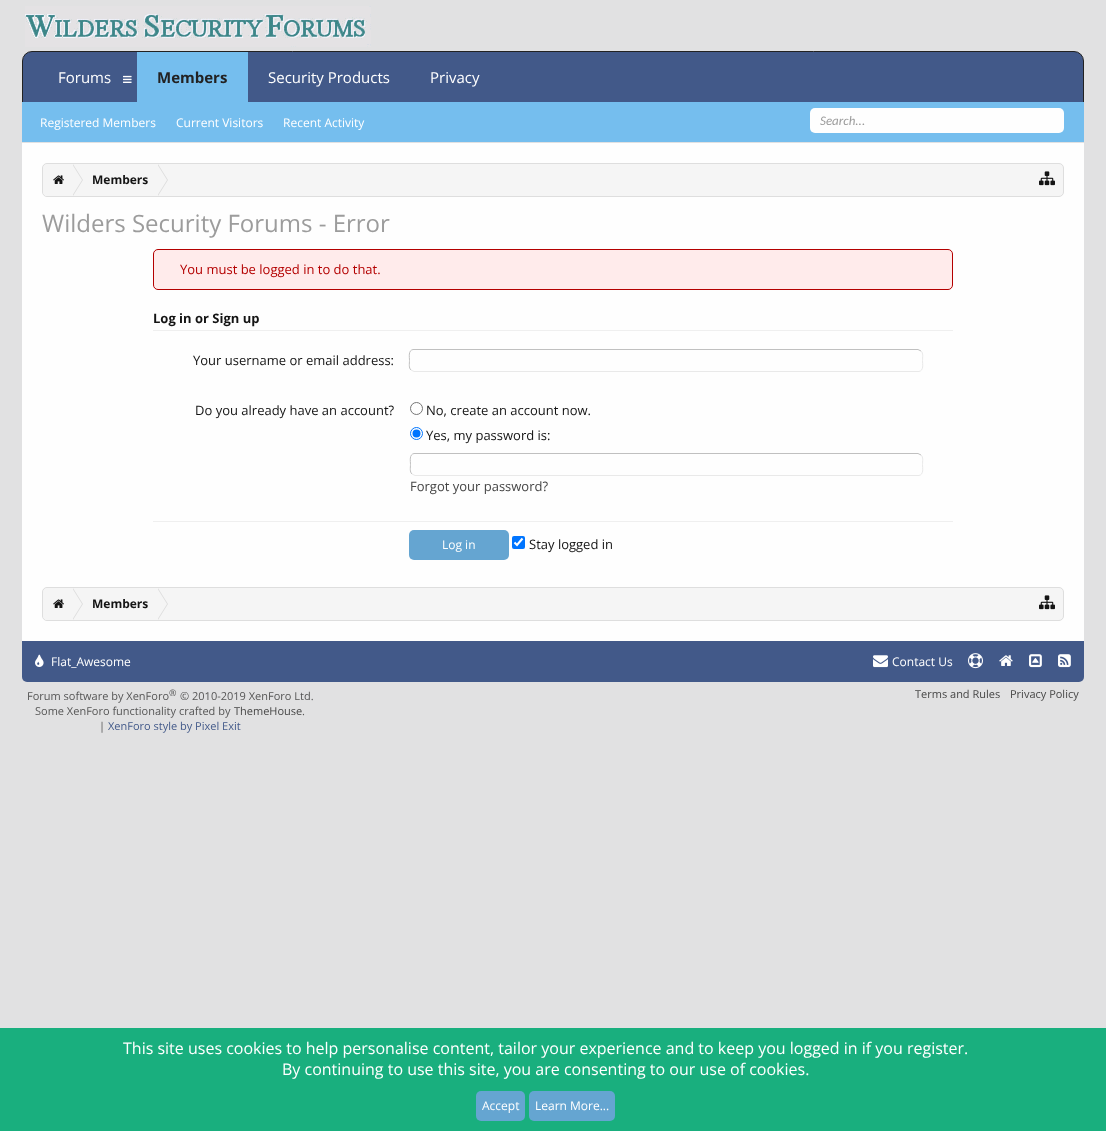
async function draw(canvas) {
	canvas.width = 1106;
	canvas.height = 1131;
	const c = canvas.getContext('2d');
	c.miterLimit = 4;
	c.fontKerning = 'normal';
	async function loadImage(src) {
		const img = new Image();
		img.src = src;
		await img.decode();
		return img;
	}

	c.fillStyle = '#e1e1e2';
	c.fillRect(0, 0, 1106, 1131);
	c.drawImage(await loadImage('img1.png'), 25, 6, 346, 41);
	c.fillStyle = '#425989';
	c.beginPath();
	c.roundRect(22.5, 51.5, 1061, 51, [9.5, 9.5, 0, 0]);
	c.fill();
	c.strokeStyle = '#222';
	c.stroke();
	c.fillStyle = '#75beee';
	c.fillRect(137, 52, 111, 50);
	c.font = 'bold 15px Open Sans';
	c.fillStyle = '#222';
	c.fillText('Members', 157, 83);
	c.fillStyle = '#75beee';
	c.fillRect(22, 102, 1062, 40);
	c.font = '12px Open Sans';
	c.fillStyle = '#fff';
	for (const [text, x, y] of [
		['Registered Members', 40, 127],
		['Current Visitors', 176, 127],
		['Recent Activity', 283, 127],
	]) {
		c.fillText(text, x, y);
	}
	c.font = '15px Open Sans';
	c.fillText('Forums', 58, 83);
	c.drawImage(await loadImage('img2.png'), 123, 75, 9, 8);
	c.fillText('Security Products', 268, 83);
	c.fillText('Privacy', 430, 83);
	c.fillStyle = '#fefefe';
	c.beginPath();
	c.roundRect(810, 108, 254, 25, 5);
	c.fill();
	c.font = 'italic 13px Carlito';
	c.fillStyle = '#9c9c9c';
	c.fillText('Search...', 820, 125);
	c.fillStyle = '#fefefe';
	c.fillRect(22, 143, 1062, 498);
	c.fillStyle = '#f5f5f5';
	c.beginPath();
	c.roundRect(42.5, 163.5, 1021, 33, 4.5);
	c.fill();
	c.strokeStyle = '#dedede';
	c.stroke();
	c.save();
	c.beginPath();
	c.roundRect(43, 164, 1020, 32, 4);
	c.clip();
	c.beginPath();
	c.roundRect(43, 164, 31, 33, [5, 0, 0, 5]);
	c.fill();
	c.restore();
	c.drawImage(await loadImage('img3.png'), 53, 175, 11, 9);
	c.fillStyle = '#dedede';
	c.beginPath();
	c.moveTo(73, 196);
	c.lineTo(73, 164);
	c.lineTo(83, 180);
	c.closePath();
	c.fill();
	c.fillStyle = '#f5f5f5';
	c.beginPath();
	c.moveTo(72, 196);
	c.lineTo(72, 164);
	c.lineTo(82, 180);
	c.closePath();
	c.fill();
	c.font = 'bold 12px Open Sans';
	c.fillStyle = '#141414';
	c.fillText('Members', 92, 184);
	c.fillStyle = '#dedede';
	c.beginPath();
	c.moveTo(158, 196);
	c.lineTo(158, 164);
	c.lineTo(168, 180);
	c.closePath();
	c.fill();
	c.fillStyle = '#f5f5f5';
	c.beginPath();
	c.moveTo(157, 196);
	c.lineTo(157, 164);
	c.lineTo(167, 180);
	c.closePath();
	c.fill();
	c.drawImage(await loadImage('img4.png'), 1039, 171, 16, 15);
	c.font = '24px Open Sans';
	c.fillStyle = '#9c9c9c';
	c.fillText('Wilders Security Forums - Error', 42, 232);
	c.fillStyle = '#ffebeb';
	c.beginPath();
	c.roundRect(153.5, 249.5, 799, 40, 4.5);
	c.fill();
	c.strokeStyle = '#b40000';
	c.stroke();
	c.font = '13px Open Sans';
	c.fillStyle = '#b40000';
	c.fillText('You must be logged in to do that.', 180, 274);
	c.fillStyle = '#efefef';
	c.fillRect(153, 330, 800, 1);
	c.font = 'bold 13px Open Sans';
	c.fillStyle = '#141414';
	c.fillText('Log in or Sign up', 153, 323);
	c.font = '13px Open Sans';
	c.fillText('Your username or email address:', 193, 365);
	c.beginPath();
	c.moveTo(921, 351);
	c.bezierCurveTo(923.5, 353, 922.5, 357.5, 922.5, 360.5);
	c.bezierCurveTo(922.5, 364, 924, 370.5, 919, 371.5);
	c.lineTo(414, 371.5);
	c.lineTo(411, 370);
	c.strokeStyle = '#e9e9e9';
	c.stroke();
	c.beginPath();
	c.moveTo(411, 370);
	c.bezierCurveTo(408.5, 368, 409.5, 363.5, 409.5, 360.5);
	c.bezierCurveTo(409.5, 357, 408, 350.5, 413, 349.5);
	c.lineTo(918, 349.5);
	c.lineTo(921, 351);
	c.strokeStyle = '#c0c0c0';
	c.stroke();
	c.fillText('Do you already have an account?', 195, 415);
	c.beginPath();
	c.arc(416.5, 408.5, 6, 0, 2 * Math.PI);
	c.strokeStyle = '#767676';
	c.stroke();
	c.fillText('No, create an account now.', 426, 415);
	c.beginPath();
	c.arc(416.5, 433.5, 6, 0, 2 * Math.PI);
	c.strokeStyle = '#0075ff';
	c.stroke();
	c.fillStyle = '#0075ff';
	c.beginPath();
	c.arc(416.5, 433.5, 4, 0, 2 * Math.PI);
	c.fill();
	c.fillStyle = '#141414';
	c.fillText('Yes, my password is:', 426, 440);
	c.beginPath();
	c.moveTo(921, 455);
	c.bezierCurveTo(923.5, 457, 922.5, 461.5, 922.5, 464.5);
	c.bezierCurveTo(922.5, 468, 924, 474.5, 919, 475.5);
	c.lineTo(415, 475.5);
	c.lineTo(412, 474);
	c.strokeStyle = '#e9e9e9';
	c.stroke();
	c.beginPath();
	c.moveTo(412, 474);
	c.bezierCurveTo(409.5, 472, 410.5, 467.5, 410.5, 464.5);
	c.bezierCurveTo(410.5, 461, 409, 454.5, 414, 453.5);
	c.lineTo(918, 453.5);
	c.lineTo(921, 455);
	c.strokeStyle = '#c0c0c0';
	c.stroke();
	c.fillStyle = '#464646';
	c.fillText('Forgot your password?', 410, 491);
	c.fillStyle = '#efefef';
	c.fillRect(153, 521, 800, 1);
	c.fillStyle = '#65a5d1';
	c.beginPath();
	c.roundRect(409, 530, 100, 30, 5);
	c.fill();
	c.font = '12px Open Sans';
	c.fillStyle = '#fff';
	c.fillText('Log in', 442, 549);
	c.fillStyle = '#0075ff';
	c.beginPath();
	c.roundRect(512, 536, 13, 13, 2);
	c.fill();
	c.beginPath();
	c.moveTo(514.5, 542.5);
	c.lineTo(517, 545);
	c.lineTo(522.5, 538.5);
	c.strokeStyle = '#fff';
	c.lineWidth = 2.1;
	c.stroke();
	c.font = '13px Open Sans';
	c.fillStyle = '#141414';
	c.fillText('Stay logged in', 529, 549);
	c.fillStyle = '#f5f5f5';
	c.beginPath();
	c.roundRect(42.5, 587.5, 1021, 33, 4.5);
	c.fill();
	c.strokeStyle = '#dedede';
	c.lineWidth = 1;
	c.stroke();
	c.save();
	c.beginPath();
	c.roundRect(43, 588, 1020, 32, 4);
	c.clip();
	c.beginPath();
	c.roundRect(43, 588, 31, 33, [5, 0, 0, 5]);
	c.fill();
	c.restore();
	c.drawImage(await loadImage('img3.png'), 53, 599, 11, 9);
	c.fillStyle = '#dedede';
	c.beginPath();
	c.moveTo(73, 620);
	c.lineTo(73, 588);
	c.lineTo(83, 604);
	c.closePath();
	c.fill();
	c.fillStyle = '#f5f5f5';
	c.beginPath();
	c.moveTo(72, 620);
	c.lineTo(72, 588);
	c.lineTo(82, 604);
	c.closePath();
	c.fill();
	c.font = 'bold 12px Open Sans';
	c.fillStyle = '#141414';
	c.fillText('Members', 92, 608);
	c.fillStyle = '#dedede';
	c.beginPath();
	c.moveTo(158, 620);
	c.lineTo(158, 588);
	c.lineTo(168, 604);
	c.closePath();
	c.fill();
	c.fillStyle = '#f5f5f5';
	c.beginPath();
	c.moveTo(157, 620);
	c.lineTo(157, 588);
	c.lineTo(167, 604);
	c.closePath();
	c.fill();
	c.drawImage(await loadImage('img4.png'), 1039, 595, 16, 15);
	c.fillStyle = '#425989';
	c.beginPath();
	c.roundRect(22, 641, 1062, 41, [0, 0, 5, 5]);
	c.fill();
	c.drawImage(await loadImage('img5.png'), 35, 654, 9, 13);
	c.font = '12px Open Sans';
	c.fillStyle = '#fff';
	c.fillText('Flat_Awesome', 51, 666);
	c.drawImage(await loadImage('img6.png'), 873, 655, 15, 13);
	c.fillText('Contact Us', 892, 666);
	c.drawImage(await loadImage('img7.png'), 968, 653, 15, 16);
	c.drawImage(await loadImage('img8.png'), 999, 655, 14, 11);
	c.drawImage(await loadImage('img9.png'), 1029, 654, 13, 14);
	c.drawImage(await loadImage('img10.png'), 1058, 654, 13, 14);
	c.font = '11px Open Sans';
	c.fillStyle = '#565656';
	c.fillText('Forum software by XenForo', 27, 700);
	c.font = '9px Open Sans';
	c.fillText('®', 169, 696);
	c.font = '11px Open Sans';
	c.fillText('© 2010-2019 XenForo Ltd.', 180, 700);
	c.fillText('Some XenForo functionality crafted by', 35, 715);
	c.fillStyle = '#464646';
	c.fillText('ThemeHouse', 234, 715);
	c.fillStyle = '#565656';
	c.fillText('.', 302, 715);
	c.fillText('|', 99, 730);
	c.fillStyle = '#425989';
	c.fillText('XenForo style by Pixel Exit', 108, 730);
	c.fillStyle = '#464646';
	c.fillText('Terms and Rules', 915, 698);
	c.fillText('Privacy Policy', 1010, 698);
	c.fillStyle = '#19af7e';
	c.fillRect(0, 1028, 1106, 103);
	c.font = '16px Open Sans';
	c.fillStyle = '#fff';
	c.fillText('This site uses cookies to help personalise content, tailor your experience and to keep you logged in if you register.', 123, 1054);
	c.fillText('By continuing to use this site, you are consenting to our use of cookies.', 282, 1075);
	c.fillStyle = '#65a5d1';
	c.beginPath();
	c.roundRect(476, 1091, 49, 30, 5);
	c.fill();
	c.font = '12px Open Sans';
	c.fillStyle = '#fff';
	c.fillText('Accept', 482, 1110);
	c.fillStyle = '#65a5d1';
	c.beginPath();
	c.roundRect(529, 1091, 86, 30, 5);
	c.fill();
	c.fillStyle = '#fff';
	c.fillText('Learn More...', 535, 1110);
}

draw(document.querySelector('canvas'));
